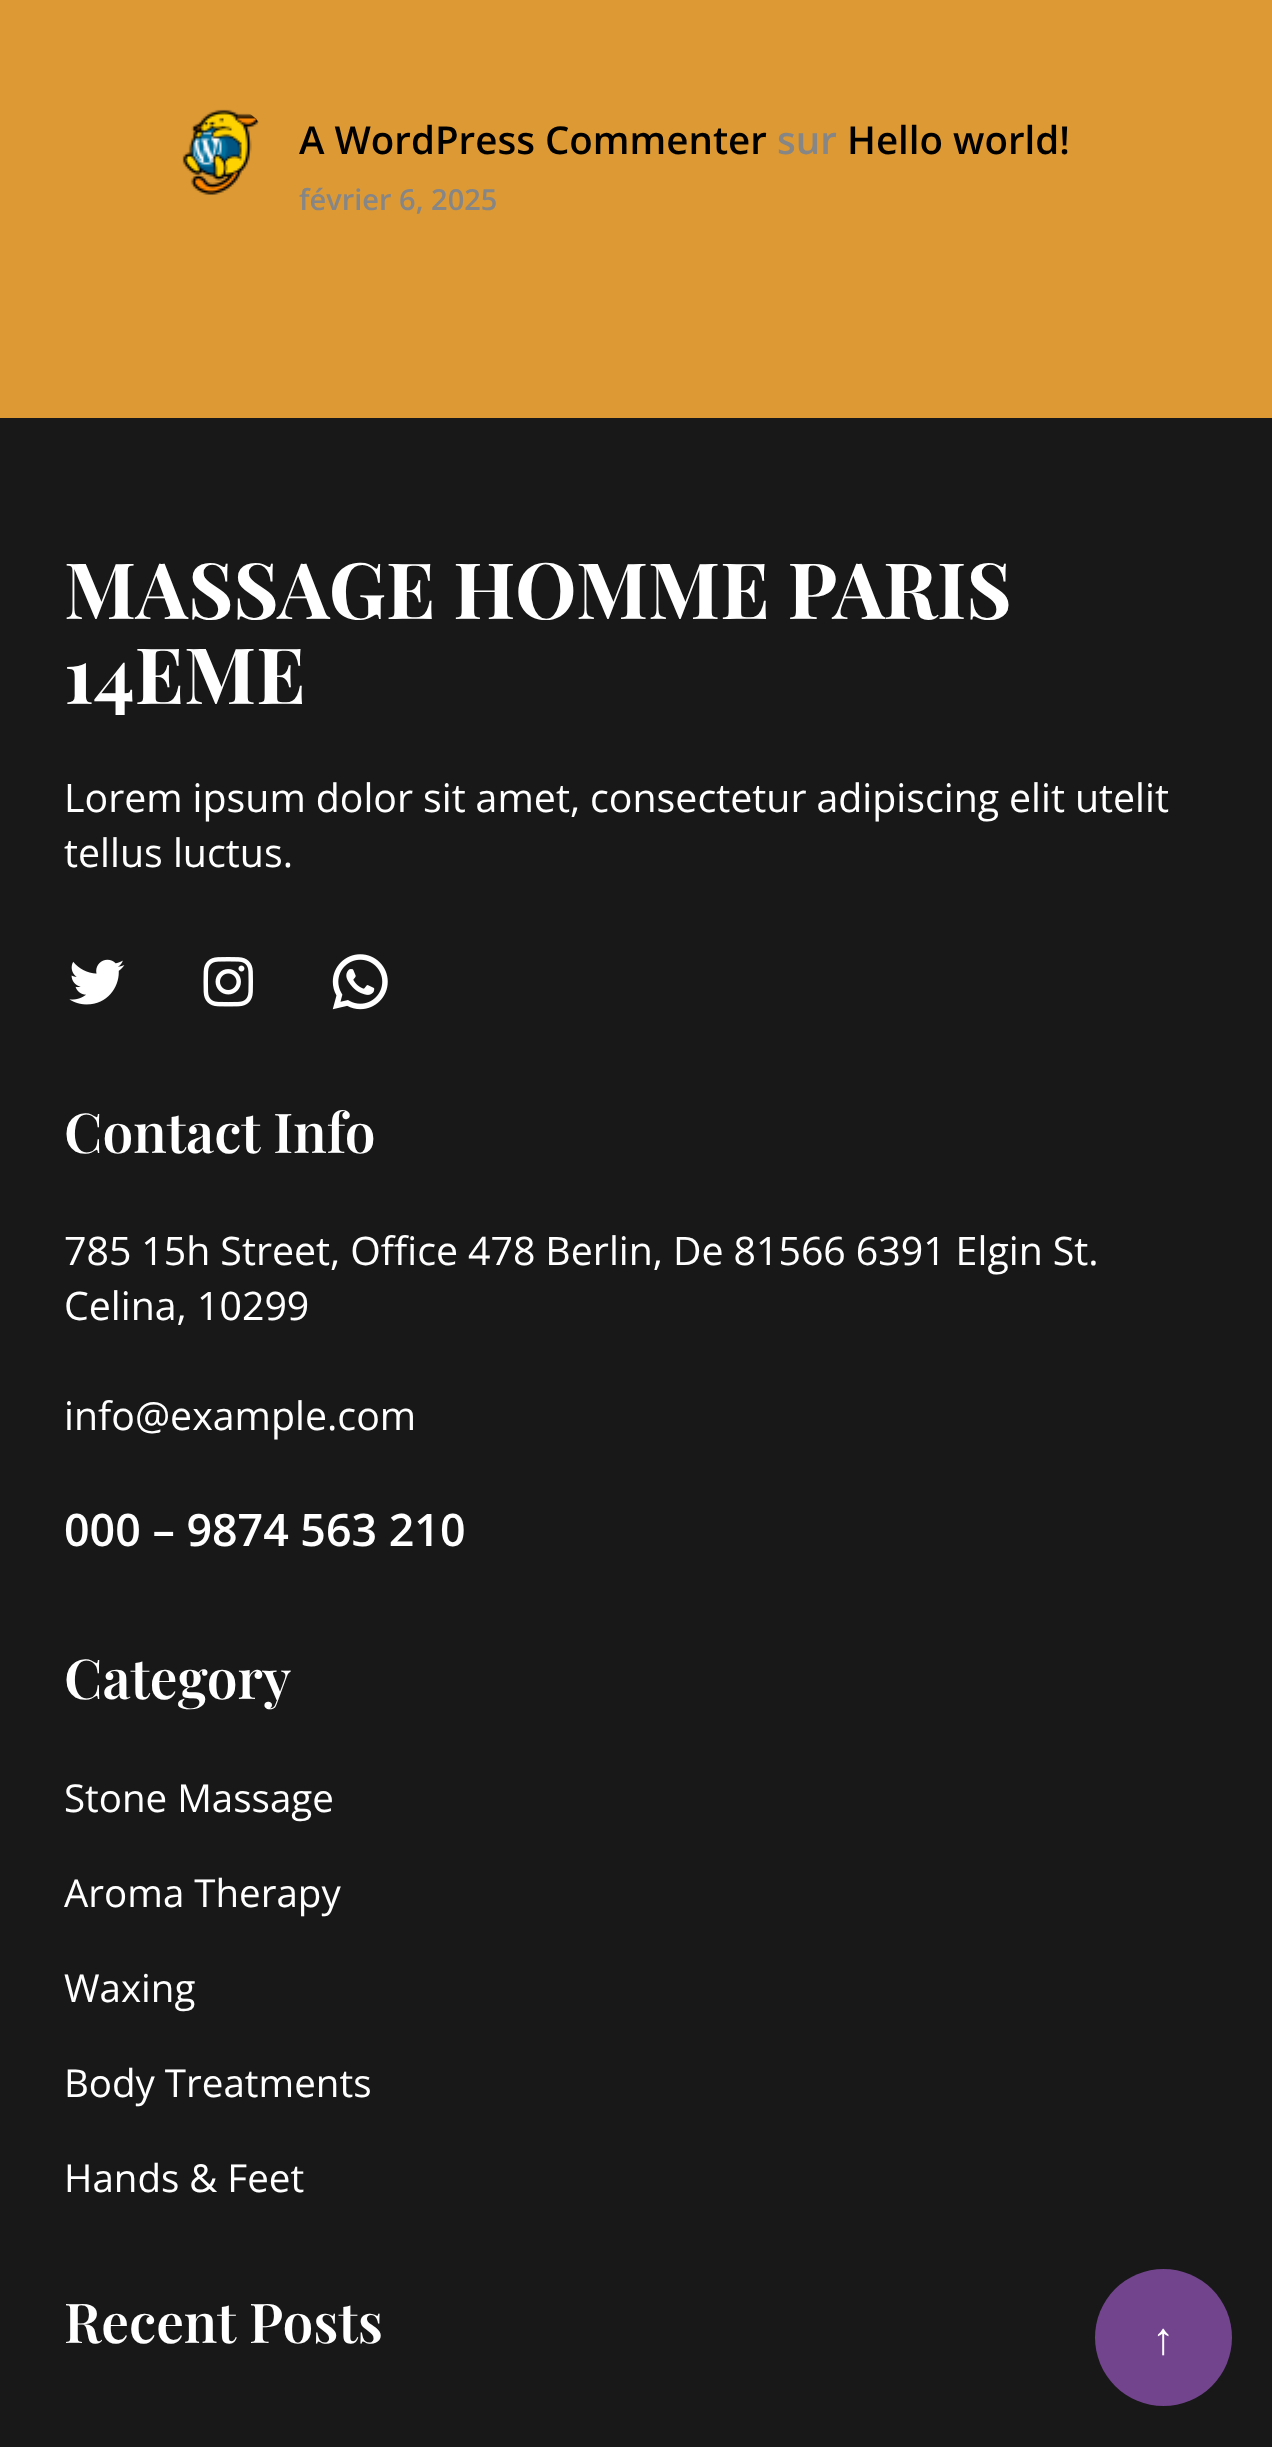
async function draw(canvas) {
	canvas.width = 1272;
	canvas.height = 2447;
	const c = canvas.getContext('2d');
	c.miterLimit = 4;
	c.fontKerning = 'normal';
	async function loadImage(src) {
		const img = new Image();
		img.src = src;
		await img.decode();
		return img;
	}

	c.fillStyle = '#d93';
	c.fillRect(0, 0, 1272, 2447);
	c.drawImage(await loadImage('img1.png'), 182, 109, 77, 86);
	c.font = '600 38.5px Open Sans';
	c.fillStyle = '#000';
	c.fillText('A WordPress Commenter', 299, 154);
	c.fillStyle = '#868686';
	c.fillText('sur', 777, 154);
	c.fillStyle = '#000';
	c.fillText('Hello world!', 847, 154);
	c.font = '600 29px Open Sans';
	c.fillStyle = '#868686';
	c.fillText('février 6, 2025', 299, 210);
	c.fillStyle = '#181818';
	c.fillRect(0, 418, 1272, 2029);
	c.font = 'bold 77.75px Playfair Display';
	c.fillStyle = '#fff';
	c.fillText('MASSAGE HOMME PARIS', 64, 619);
	c.fillText('14EME', 64, 704);
	c.wordSpacing = '-0.25px';
	c.font = '39.3px Open Sans';
	c.fillText('Lorem ipsum dolor sit amet, consectetur adipiscing elit utelit', 64, 812);
	c.wordSpacing = '0px';
	c.fillText('tellus luctus.', 64, 867);
	c.drawImage(await loadImage('img2.png'), 69, 959, 56, 46);
	c.drawImage(await loadImage('img3.png'), 203, 957, 50, 50);
	c.drawImage(await loadImage('img4.png'), 332, 954, 56, 56);
	c.font = '600 55px Playfair Display';
	c.fillText('Contact Info', 64, 1153);
	c.wordSpacing = '-0.25px';
	c.font = '39.3px Open Sans';
	c.fillText('785 15h Street, Office 478 Berlin, De 81566 6391 Elgin St.', 64, 1265);
	c.wordSpacing = '0px';
	c.fillText('Celina, 10299', 64, 1320);
	c.fillText('info@example.com', 64, 1430);
	c.font = '600 44.75px Open Sans';
	c.fillText('000 – 9874 563 210', 64, 1546);
	c.font = '600 55px Playfair Display';
	c.fillText('Category', 64, 1699);
	c.font = '38.5px Open Sans';
	for (const [text, x, y] of [
		['Stone Massage', 64, 1812],
		['Aroma Therapy', 64, 1907],
		['Waxing', 64, 2002],
		['Body Treatments', 64, 2097],
		['Hands & Feet', 64, 2192],
	]) {
		c.fillText(text, x, y);
	}
	c.font = '600 55px Playfair Display';
	c.fillText('Recent Posts', 64, 2343);
	c.fillStyle = '#72448d';
	c.beginPath();
	c.arc(1163.5, 2337.5, 68.5, 0, 2 * Math.PI);
	c.fill();
	c.font = '44.75px Liberation Serif';
	c.fillStyle = '#fff';
	c.fillText('↑', 1152, 2354);
}

draw(document.querySelector('canvas'));
